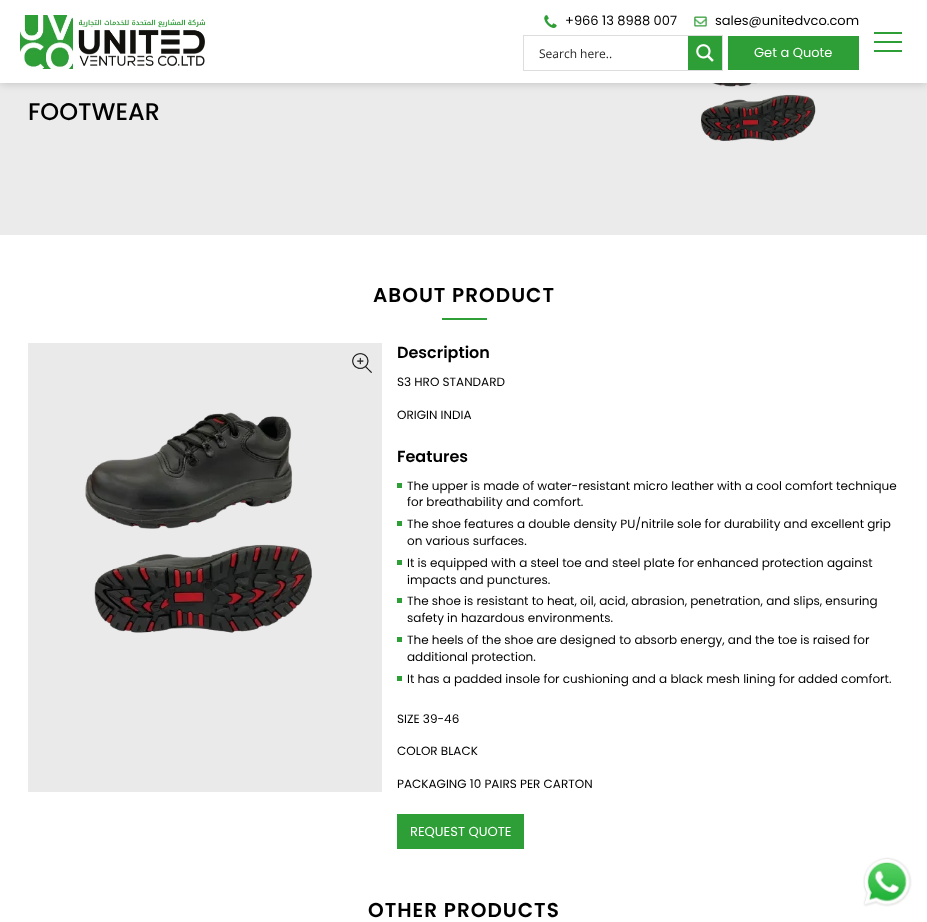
async function draw(canvas) {
	canvas.width = 927;
	canvas.height = 922;
	const c = canvas.getContext('2d');
	c.miterLimit = 4;
	c.fontKerning = 'normal';
	async function loadImage(src) {
		const img = new Image();
		img.src = src;
		await img.decode();
		return img;
	}

	c.fillStyle = '#fff';
	c.fillRect(0, 0, 927, 922);
	c.fillStyle = '#ebebeb';
	c.fillRect(0, 83, 927, 152);
	c.drawImage(await loadImage('img5.png'), 700, 83, 116, 58);
	c.fillStyle = '#00000033';
	c.filter = 'blur(5px)';
	c.beginPath();
	c.rect(0, 0, 927, 83);
	c.fill();
	c.filter = 'none';
	c.fillStyle = '#fff';
	c.fillRect(0, 0, 927, 83);
	c.drawImage(await loadImage('img1.png'), 20, 15, 185, 54);
	c.drawImage(await loadImage('img2.png'), 544, 15, 13, 13);
	c.font = '13px Poppins';
	c.fillStyle = '#000';
	c.fillText('+966 13 8988 007', 565, 25);
	c.drawImage(await loadImage('img3.png'), 694, 16, 13, 11);
	c.fillText('sales@unitedvco.com', 715, 25);
	c.strokeStyle = '#ddd';
	c.strokeRect(523.5, 35.5, 199, 35);
	c.font = '12px Open Sans';
	c.fillStyle = '#262626';
	c.fillText('Search here..', 539, 58);
	c.fillStyle = '#2e9f37';
	c.fillRect(688, 36, 34, 34);
	c.drawImage(await loadImage('img4.png'), 696, 44, 18, 18);
	c.fillRect(728, 36, 131, 34);
	c.font = '13px Poppins';
	c.fillStyle = '#fff';
	c.fillText('Get a Quote', 754, 57);
	for (const [x, y, w, h, color] of [
		[874, 41, 28, 2, '#2e9f37'],
		[874, 32, 28, 2, '#2e9f37'],
		[874, 50, 28, 2, '#2e9f37'],
	]) {
		c.fillStyle = color;
		c.fillRect(x, y, w, h);
	}
	c.font = '500 24px Poppins';
	c.fillStyle = '#000';
	c.fillText('FOOTWEAR', 28, 120);
	c.letterSpacing = '1px';
	c.font = '600 20px Poppins';
	c.fillText('ABOUT PRODUCT', 373, 302);
	c.fillStyle = '#2e9f37';
	c.fillRect(442, 318, 45, 2);
	c.fillStyle = '#eaeaea';
	c.fillRect(28, 343, 354, 449);
	c.drawImage(await loadImage('img6.png'), 352, 353, 20, 20);
	c.drawImage(await loadImage('img7.png'), 85, 412, 227, 221);
	c.letterSpacing = '0px';
	c.font = '600 16px Poppins';
	c.fillStyle = '#000';
	c.fillText('Description', 397, 358);
	c.font = '12px Poppins';
	c.fillText('S3 HRO STANDARD', 397, 386);
	c.fillText('ORIGIN INDIA', 397, 419);
	c.font = '600 16px Poppins';
	c.fillText('Features', 397, 462);
	c.fillStyle = '#2e9f37';
	c.fillRect(397, 483, 5, 5);
	c.font = '12px Poppins';
	c.fillStyle = '#000';
	c.fillText('The upper is made of water-resistant micro leather with a cool comfort technique', 407, 490);
	c.fillText('for breathability and comfort.', 407, 506);
	c.fillStyle = '#2e9f37';
	c.fillRect(397, 521, 5, 5);
	c.fillStyle = '#000';
	c.fillText('The shoe features a double density PU/nitrile sole for durability and excellent grip', 407, 528);
	c.fillText('on various surfaces.', 407, 545);
	c.fillStyle = '#2e9f37';
	c.fillRect(397, 560, 5, 5);
	c.fillStyle = '#000';
	c.fillText('It is equipped with a steel toe and steel plate for enhanced protection against', 407, 567);
	c.fillText('impacts and punctures.', 407, 584);
	c.fillStyle = '#2e9f37';
	c.fillRect(397, 598, 5, 5);
	c.fillStyle = '#000';
	c.fillText('The shoe is resistant to heat, oil, acid, abrasion, penetration, and slips, ensuring', 407, 605);
	c.fillText('safety in hazardous environments.', 407, 622);
	c.fillStyle = '#2e9f37';
	c.fillRect(397, 637, 5, 5);
	c.fillStyle = '#000';
	c.fillText('The heels of the shoe are designed to absorb energy, and the toe is raised for', 407, 644);
	c.fillText('additional protection.', 407, 661);
	c.fillStyle = '#2e9f37';
	c.fillRect(397, 676, 5, 5);
	c.fillStyle = '#000';
	for (const [text, x, y] of [
		['It has a padded insole for cushioning and a black mesh lining for added comfort.', 407, 683],
		['SIZE 39-46', 397, 723],
		['COLOR BLACK', 397, 755],
		['PACKAGING 10 PAIRS PER CARTON', 397, 788],
	]) {
		c.fillText(text, x, y);
	}
	c.fillStyle = '#2e9f37';
	c.fillRect(397, 814, 127, 35);
	c.font = '13px Poppins';
	c.fillStyle = '#fff';
	c.fillText('REQUEST QUOTE', 410, 836);
	c.drawImage(await loadImage('img8.png'), 863, 857, 49, 50);
	c.letterSpacing = '1px';
	c.font = '600 20px Poppins';
	c.fillStyle = '#000';
	c.fillText('OTHER PRODUCTS', 368, 917);
}

draw(document.querySelector('canvas'));
